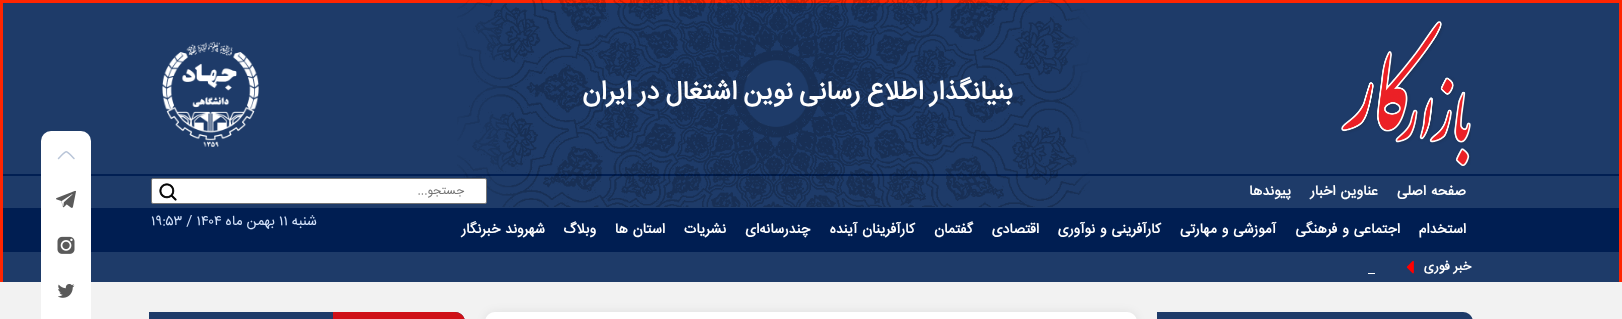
async function draw(canvas) {
	canvas.width = 1622;
	canvas.height = 319;
	const c = canvas.getContext('2d');
	c.miterLimit = 4;
	c.fontKerning = 'normal';
	async function loadImage(src) {
		const img = new Image();
		img.src = src;
		await img.decode();
		return img;
	}

	c.fillStyle = '#1e3b69';
	c.fillRect(0, 0, 1622, 319);
	for (const [x, y, w, h, color] of [
		[0, 0, 1622, 3, '#ff2501'],
		[1619, 0, 3, 282, '#ff2501'],
		[0, 0, 3, 282, '#ff2501'],
	]) {
		c.fillStyle = color;
		c.fillRect(x, y, w, h);
	}
	c.drawImage(await loadImage('img1.png'), 1341, 21, 130, 145);
	c.fillStyle = '#011f53';
	c.fillRect(3, 174, 1616, 2);
	c.drawImage(await loadImage('img2.png'), 457, 0, 633, 207);
	c.wordSpacing = '-1px';
	c.direction = 'rtl';
	c.font = 'bold 26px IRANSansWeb';
	c.fillStyle = '#fff';
	c.fillText('بنیانگذار اطلاع رسانی نوین اشتغال در ایران', 1013, 99);
	c.drawImage(await loadImage('img3.png'), 162, 41, 97, 106);
	c.wordSpacing = '1px';
	c.font = 'bold 14px IRANSansWeb';
	c.fillText('صفحه اصلی', 1466, 195);
	c.fillText('عناوین اخبار', 1378, 195);
	c.wordSpacing = '0px';
	c.fillText('پیوندها', 1291, 195);
	c.beginPath();
	c.roundRect(151.5, 178.5, 335, 25, 1.5);
	c.fill();
	c.strokeStyle = '#767676';
	c.stroke();
	c.font = '12px IRANSansWeb';
	c.fillStyle = '#757575';
	c.fillText('جستجو...', 464, 194);
	c.drawImage(await loadImage('img4.png'), 159, 183, 18, 18);
	c.fillStyle = '#001e52';
	c.fillRect(3, 208, 1616, 44);
	c.font = 'bold 14px IRANSansWeb';
	c.fillStyle = '#fff';
	c.fillText('استخدام', 1466, 233);
	c.wordSpacing = '1px';
	for (const [text, x, y] of [
		['اجتماعی و فرهنگی', 1400, 233],
		['آموزشی و مهارتی', 1276, 233],
		['کارآفرینی و نوآوری', 1161, 233],
	]) {
		c.fillText(text, x, y);
	}
	c.wordSpacing = '0px';
	c.fillText('اقتصادی', 1039, 233);
	c.fillText('گفتمان', 973, 233);
	c.wordSpacing = '1px';
	c.fillText('کارآفرینان آینده', 915, 233);
	c.wordSpacing = '0px';
	c.fillText('چندرسانه‌ای', 810, 233);
	c.fillText('نشریات', 726, 233);
	c.wordSpacing = '1px';
	c.fillText('استان ها', 665, 233);
	c.wordSpacing = '0px';
	c.fillText('وبلاگ', 596, 233);
	c.wordSpacing = '1px';
	c.fillText('شهروند خبرنگار', 545, 233);
	c.wordSpacing = '0px';
	c.font = '14px IRANSansWeb';
	c.fillStyle = '#d3e2fa';
	c.fillText('شنبه', 317, 225);
	c.direction = 'ltr';
	c.fillText('۱۱', 279, 225);
	c.direction = 'rtl';
	c.fillText('بهمن ماه', 275, 225);
	c.direction = 'ltr';
	c.fillText('۱۹:۵۳ / ۱۴۰۴', 151, 225);
	c.direction = 'rtl';
	c.font = 'bold 13px IRANSansWeb';
	c.fillStyle = '#fff';
	c.fillText('خبر فوری', 1471, 270);
	c.drawImage(await loadImage('img5.png'), 1406, 260, 8, 14);
	c.fillRect(1368, 273, 7, 1);
	c.fillStyle = '#f2f2f2';
	c.fillRect(0, 282, 1622, 37);
	c.fillStyle = '#fff';
	c.beginPath();
	c.roundRect(41, 131, 50, 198, 10);
	c.fill();
	c.beginPath();
	c.moveTo(58.5, 158.5);
	c.bezierCurveTo(67.5, 149.5, 65, 149.5, 74, 158.5);
	c.strokeStyle = '#b9c5d8';
	c.lineWidth = 1.5;
	c.lineCap = 'round';
	c.lineJoin = 'round';
	c.stroke();
	c.drawImage(await loadImage('img6.png'), 56, 190, 20, 18);
	c.drawImage(await loadImage('img7.png'), 57, 236, 18, 18);
	c.drawImage(await loadImage('img8.png'), 58, 284, 17, 14);
	c.fillStyle = '#1e3b69';
	c.beginPath();
	c.moveTo(1157, 312);
	c.lineTo(1463, 312);
	c.bezierCurveTo(1468.5, 312, 1473, 316.5, 1473, 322);
	c.lineTo(1473, 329);
	c.lineTo(1157, 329);
	c.closePath();
	c.fill();
	c.fillStyle = '#00000014';
	c.filter = 'blur(5px)';
	c.beginPath();
	c.roundRect(485, 312, 652, 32, 10);
	c.fill();
	c.filter = 'none';
	c.fillStyle = '#fff';
	c.beginPath();
	c.moveTo(495, 312);
	c.lineTo(1127, 312);
	c.bezierCurveTo(1132.5, 312, 1137, 316.5, 1137, 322);
	c.lineTo(1137, 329);
	c.lineTo(485, 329);
	c.lineTo(485, 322);
	c.bezierCurveTo(485, 316.5, 489.5, 312, 495, 312);
	c.closePath();
	c.fill();
	c.fillStyle = '#1e3b69';
	c.beginPath();
	c.moveTo(149, 312);
	c.lineTo(455, 312);
	c.bezierCurveTo(460.5, 312, 465, 316.5, 465, 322);
	c.lineTo(465, 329);
	c.lineTo(149, 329);
	c.closePath();
	c.fill();
	c.fillStyle = '#cf1118';
	c.beginPath();
	c.moveTo(333, 312);
	c.lineTo(455, 312);
	c.bezierCurveTo(460.5, 312, 465, 316.5, 465, 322);
	c.lineTo(465, 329);
	c.lineTo(333, 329);
	c.closePath();
	c.fill();
}

draw(document.querySelector('canvas'));
